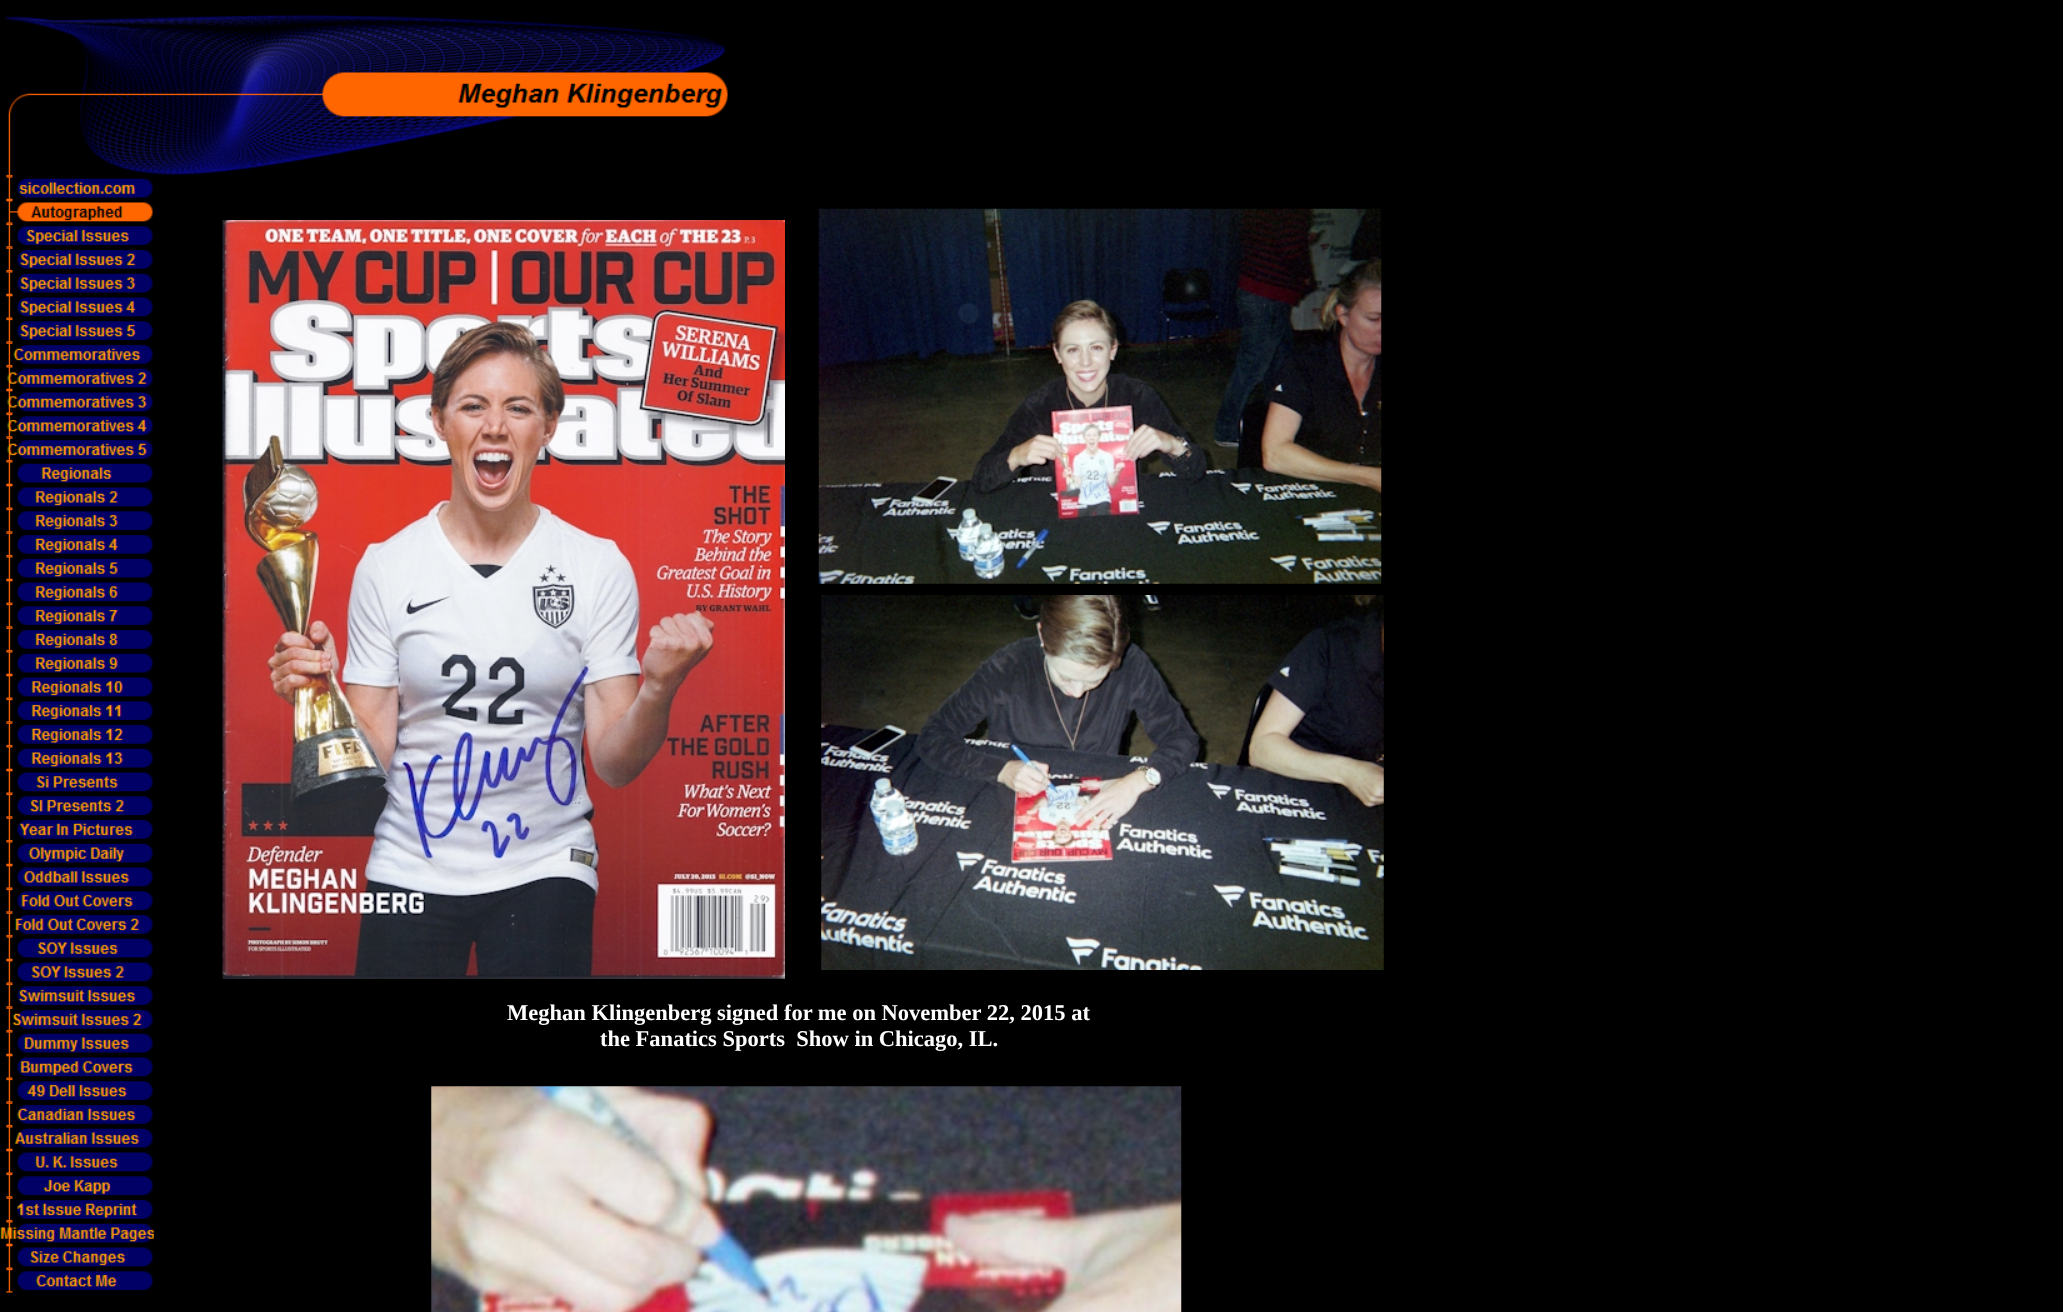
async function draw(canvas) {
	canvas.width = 2063;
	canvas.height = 1312;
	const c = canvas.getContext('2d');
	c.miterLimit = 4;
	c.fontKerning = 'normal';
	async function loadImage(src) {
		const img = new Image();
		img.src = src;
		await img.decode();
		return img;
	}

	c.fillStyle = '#000';
	c.fillRect(0, 0, 2063, 1312);
	c.drawImage(await loadImage('img1.png'), 5, 15, 723, 162);
	c.drawImage(await loadImage('img2.png'), 6, 176, 147, 24);
	c.drawImage(await loadImage('img3.png'), 6, 200, 147, 24);
	c.drawImage(await loadImage('img4.png'), 6, 223, 147, 25);
	c.drawImage(await loadImage('img5.png'), 6, 247, 147, 25);
	c.drawImage(await loadImage('img6.png'), 6, 271, 147, 24);
	c.drawImage(await loadImage('img7.png'), 6, 295, 147, 24);
	c.drawImage(await loadImage('img8.png'), 6, 318, 147, 25);
	c.drawImage(await loadImage('img9.png'), 6, 342, 147, 25);
	c.drawImage(await loadImage('img10.png'), 6, 366, 147, 24);
	c.drawImage(await loadImage('img11.png'), 6, 390, 147, 24);
	c.drawImage(await loadImage('img12.png'), 6, 413, 147, 25);
	c.drawImage(await loadImage('img13.png'), 6, 437, 147, 25);
	c.drawImage(await loadImage('img14.png'), 6, 461, 147, 24);
	c.drawImage(await loadImage('img15.png'), 6, 485, 147, 24);
	c.drawImage(await loadImage('img16.png'), 6, 508, 147, 25);
	c.drawImage(await loadImage('img17.png'), 6, 532, 147, 25);
	c.drawImage(await loadImage('img18.png'), 6, 556, 147, 24);
	c.drawImage(await loadImage('img19.png'), 6, 580, 147, 24);
	c.drawImage(await loadImage('img20.png'), 6, 603, 147, 25);
	c.drawImage(await loadImage('img21.png'), 6, 627, 147, 25);
	c.drawImage(await loadImage('img22.png'), 6, 651, 147, 24);
	c.drawImage(await loadImage('img23.png'), 6, 675, 147, 24);
	c.drawImage(await loadImage('img24.png'), 6, 698, 147, 25);
	c.drawImage(await loadImage('img25.png'), 6, 722, 147, 25);
	c.drawImage(await loadImage('img26.png'), 6, 746, 147, 24);
	c.drawImage(await loadImage('img27.png'), 6, 770, 147, 24);
	c.drawImage(await loadImage('img28.png'), 6, 793, 147, 25);
	c.drawImage(await loadImage('img29.png'), 6, 817, 147, 25);
	c.drawImage(await loadImage('img30.png'), 6, 841, 147, 24);
	c.drawImage(await loadImage('img31.png'), 6, 865, 147, 24);
	c.drawImage(await loadImage('img32.png'), 6, 888, 147, 25);
	c.drawImage(await loadImage('img33.png'), 6, 912, 147, 25);
	c.drawImage(await loadImage('img34.png'), 6, 936, 147, 24);
	c.drawImage(await loadImage('img35.png'), 6, 960, 147, 24);
	c.drawImage(await loadImage('img36.png'), 6, 983, 147, 25);
	c.drawImage(await loadImage('img37.png'), 6, 1007, 147, 25);
	c.drawImage(await loadImage('img38.png'), 6, 1031, 147, 24);
	c.drawImage(await loadImage('img39.png'), 6, 1055, 147, 24);
	c.drawImage(await loadImage('img40.png'), 6, 1078, 147, 25);
	c.drawImage(await loadImage('img41.png'), 6, 1102, 147, 25);
	c.drawImage(await loadImage('img42.png'), 6, 1126, 147, 24);
	c.drawImage(await loadImage('img43.png'), 6, 1150, 147, 24);
	c.drawImage(await loadImage('img44.png'), 6, 1173, 147, 25);
	c.drawImage(await loadImage('img45.png'), 6, 1197, 147, 25);
	c.drawImage(await loadImage('img46.png'), 0, 1221, 154, 24);
	c.drawImage(await loadImage('img47.png'), 6, 1245, 147, 24);
	c.drawImage(await loadImage('img48.png'), 6, 1268, 147, 25);
	c.drawImage(await loadImage('img49.png'), 222, 220, 563, 759);
	c.drawImage(await loadImage('img50.png'), 818, 208, 564, 376);
	c.drawImage(await loadImage('img51.png'), 821, 595, 563, 375);
	c.font = 'bold 22.5px Liberation Serif';
	c.fillStyle = '#fff';
	c.fillText('Meghan Klingenberg signed for me on November 22, 2015 at', 507, 1020);
	c.fillText('the Fanatics Sports  Show in Chicago, IL.', 600, 1046);
	c.drawImage(await loadImage('img52.png'), 431, 1086, 751, 226);
}

draw(document.querySelector('canvas'));
